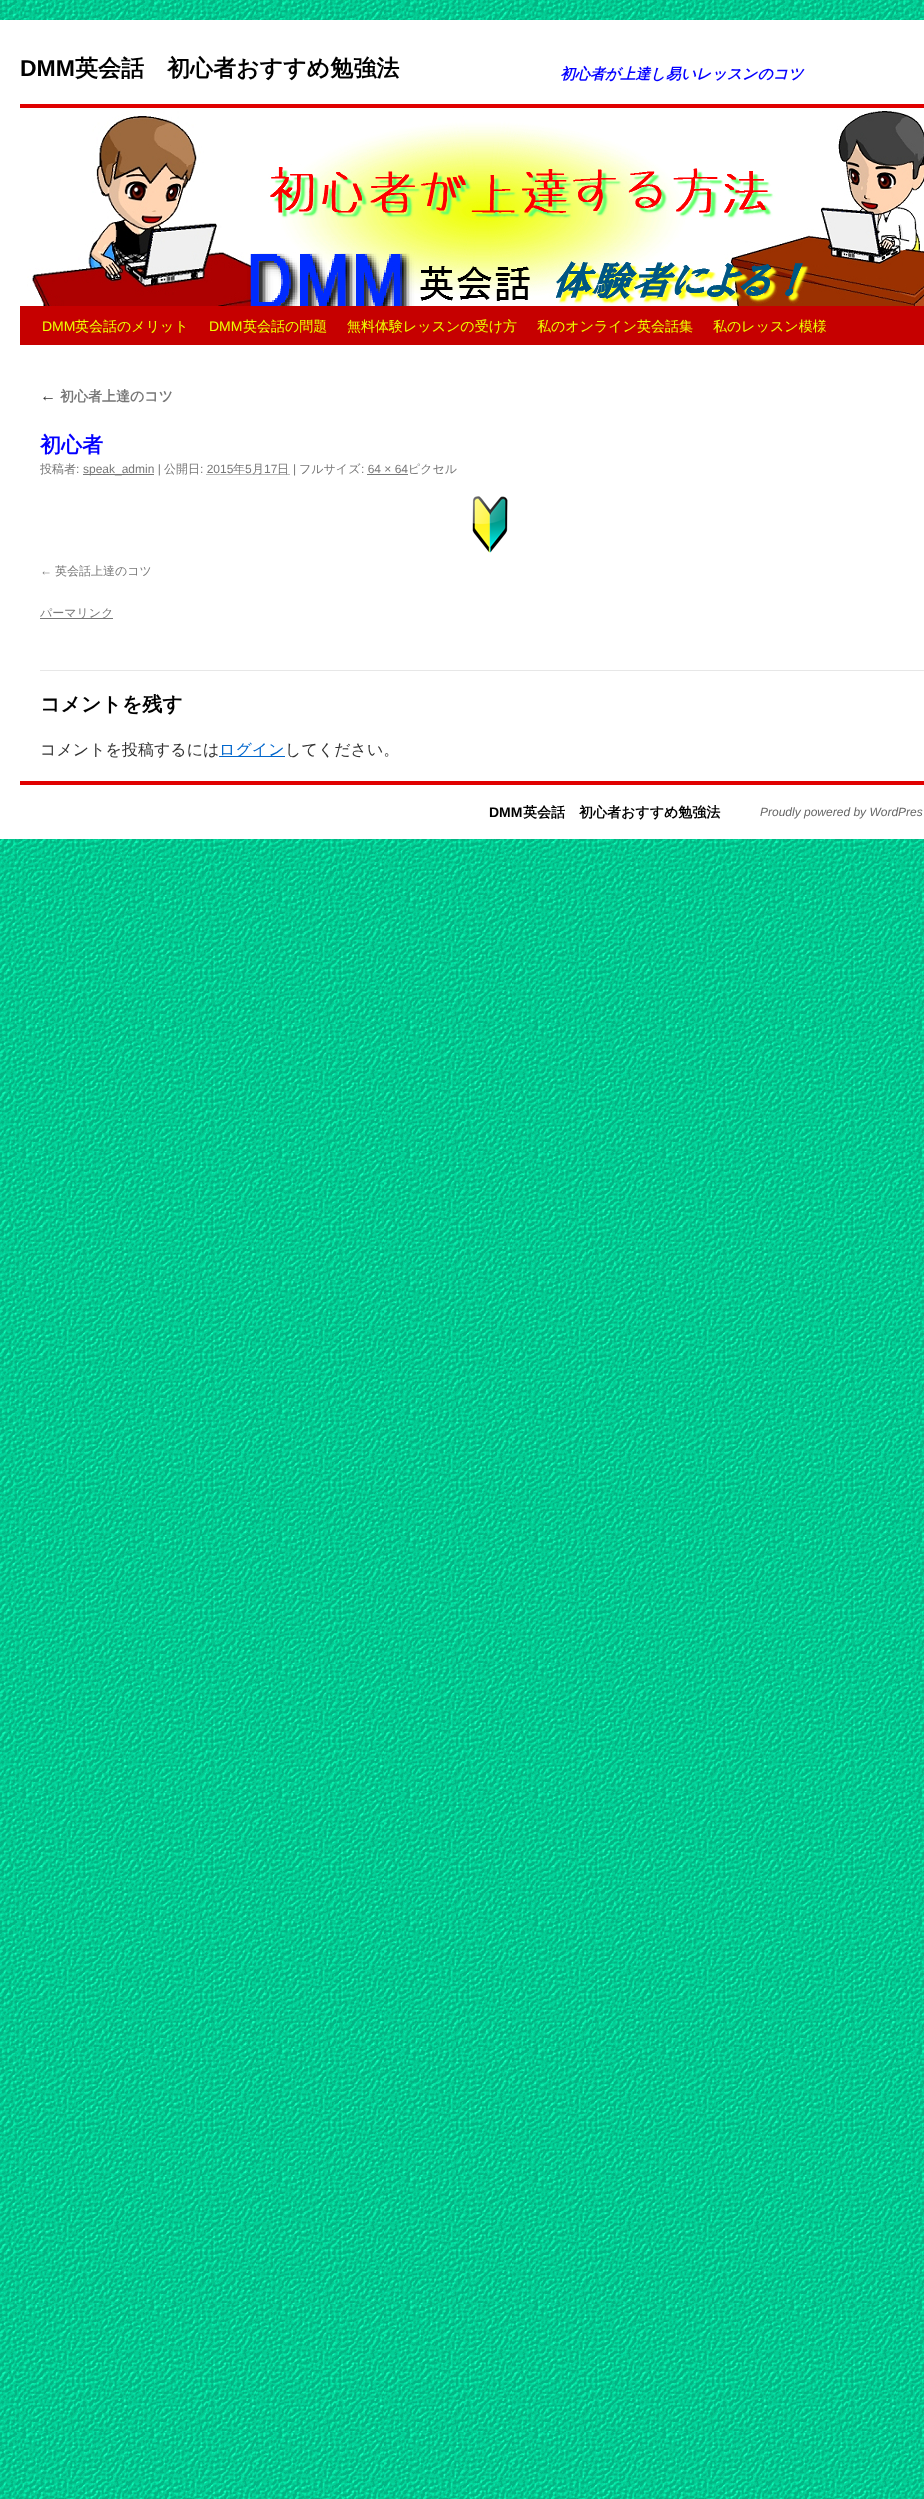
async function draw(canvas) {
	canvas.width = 924;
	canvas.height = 2499;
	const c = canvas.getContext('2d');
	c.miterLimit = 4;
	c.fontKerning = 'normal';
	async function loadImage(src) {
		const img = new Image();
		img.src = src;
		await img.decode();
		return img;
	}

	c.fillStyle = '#fff';
	c.fillRect(0, 0, 924, 2499);
	c.drawImage(await loadImage('img1.png'), 0, 0, 924, 2499);
	c.fillRect(0, 20, 924, 819);
	c.font = 'bold 23px Liberation Sans';
	c.fillStyle = '#000';
	c.fillText('DMM', 20, 76);
	c.font = 'bold 23px WenQuanYi Zen Hei';
	c.fillText('英会話　初心者おすすめ勉強法', 75, 76);
	c.font = 'italic bold 15px WenQuanYi Zen Hei';
	c.fillStyle = '#0400ff';
	c.fillText('初心者が上達し易いレッスンのコツ', 560, 79);
	c.fillStyle = '#e00000';
	c.fillRect(20, 104, 904, 4);
	c.fillStyle = '#c60000';
	c.fillRect(20, 306, 904, 39);
	c.drawImage(await loadImage('img2.png'), 27, 108, 897, 198);
	c.font = '14px Liberation Sans';
	c.fillStyle = '#ef0';
	c.fillText('DMM', 42, 331);
	c.font = '500 14px WenQuanYi Zen Hei';
	c.fillText('英会話のメリット', 75, 331);
	c.font = '14px Liberation Sans';
	c.fillText('DMM', 209, 331);
	c.font = '500 14px WenQuanYi Zen Hei';
	for (const [text, x, y] of [
		['英会話の問題', 243, 331],
		['無料体験レッスンの受け方', 347, 331],
		['私のオンライン英会話集', 537, 331],
		['私のレッスン模様', 713, 331],
	]) {
		c.fillText(text, x, y);
	}
	c.font = 'italic 16px Liberation Sans';
	c.fillStyle = '#333';
	c.fillText('←', 40, 401);
	c.font = 'bold 14px WenQuanYi Zen Hei';
	c.fillStyle = '#777';
	c.fillText('初心者上達のコツ', 60, 401);
	c.font = 'bold 21px WenQuanYi Zen Hei';
	c.fillStyle = '#0400ff';
	c.fillText('初心者', 40, 452);
	c.font = '500 12px WenQuanYi Zen Hei';
	c.fillStyle = '#777';
	c.fillText('投稿者', 40, 473);
	c.font = '12px Liberation Sans';
	c.fillText(':', 76, 473);
	c.fillRect(83, 474, 71, 1);
	c.fillText('speak_admin |', 83, 473);
	c.font = '500 12px WenQuanYi Zen Hei';
	c.fillText('公開日', 164, 473);
	c.font = '12px Liberation Sans';
	c.fillText(': 2015', 200, 473);
	c.beginPath();
	c.moveTo(206.5, 474.5);
	c.lineTo(289.5, 474.5);
	c.strokeStyle = '#777';
	c.setLineDash([1, 1]);
	c.stroke();
	c.font = '500 12px WenQuanYi Zen Hei';
	c.fillText('年', 233, 473);
	c.font = '12px Liberation Sans';
	c.fillText('5', 245, 473);
	c.font = '500 12px WenQuanYi Zen Hei';
	c.fillText('月', 252, 473);
	c.font = '12px Liberation Sans';
	c.fillText('17', 264, 473);
	c.font = '500 12px WenQuanYi Zen Hei';
	c.fillText('日', 277, 473);
	c.font = '12px Liberation Sans';
	c.fillText('|', 293, 473);
	c.font = '500 12px WenQuanYi Zen Hei';
	c.fillText('フルサイズ', 299, 473);
	c.font = '12px Liberation Sans';
	c.fillText(': 64 × 64', 361, 473);
	c.font = '500 12px WenQuanYi Zen Hei';
	c.fillText('ピクセル', 408, 473);
	c.fillRect(367, 474, 41, 1);
	c.drawImage(await loadImage('img3.png'), 472, 496, 36, 57);
	c.font = '12px Liberation Sans';
	c.fillText('←', 40, 575);
	c.font = '500 12px WenQuanYi Zen Hei';
	c.fillText('英会話上達のコツ', 55, 575);
	c.fillRect(40, 618, 73, 1);
	c.fillText('パーマリンク', 40, 617);
	c.fillStyle = '#e7e7e7';
	c.fillRect(40, 670, 884, 1);
	c.font = 'bold 20px WenQuanYi Zen Hei';
	c.fillStyle = '#000';
	c.fillText('コメントを残す', 40, 711);
	c.font = '500 16px WenQuanYi Zen Hei';
	c.fillStyle = '#333';
	c.fillText('コメントを投稿するには', 40, 755);
	c.fillStyle = '#06c';
	c.fillRect(219, 756, 66, 1);
	c.fillText('ログイン', 219, 755);
	c.fillStyle = '#333';
	c.fillText('してください。', 285, 755);
	c.fillStyle = '#e00000';
	c.fillRect(20, 781, 904, 4);
	c.font = 'bold 14px Liberation Sans';
	c.fillStyle = '#000';
	c.fillText('DMM', 489, 817);
	c.font = 'bold 14px WenQuanYi Zen Hei';
	c.fillText('英会話　初心者おすすめ勉強法', 523, 817);
	c.font = 'italic 12px Liberation Sans';
	c.fillStyle = '#666';
	c.fillText('Proudly powered by WordPres', 760, 816);
}

draw(document.querySelector('canvas'));
